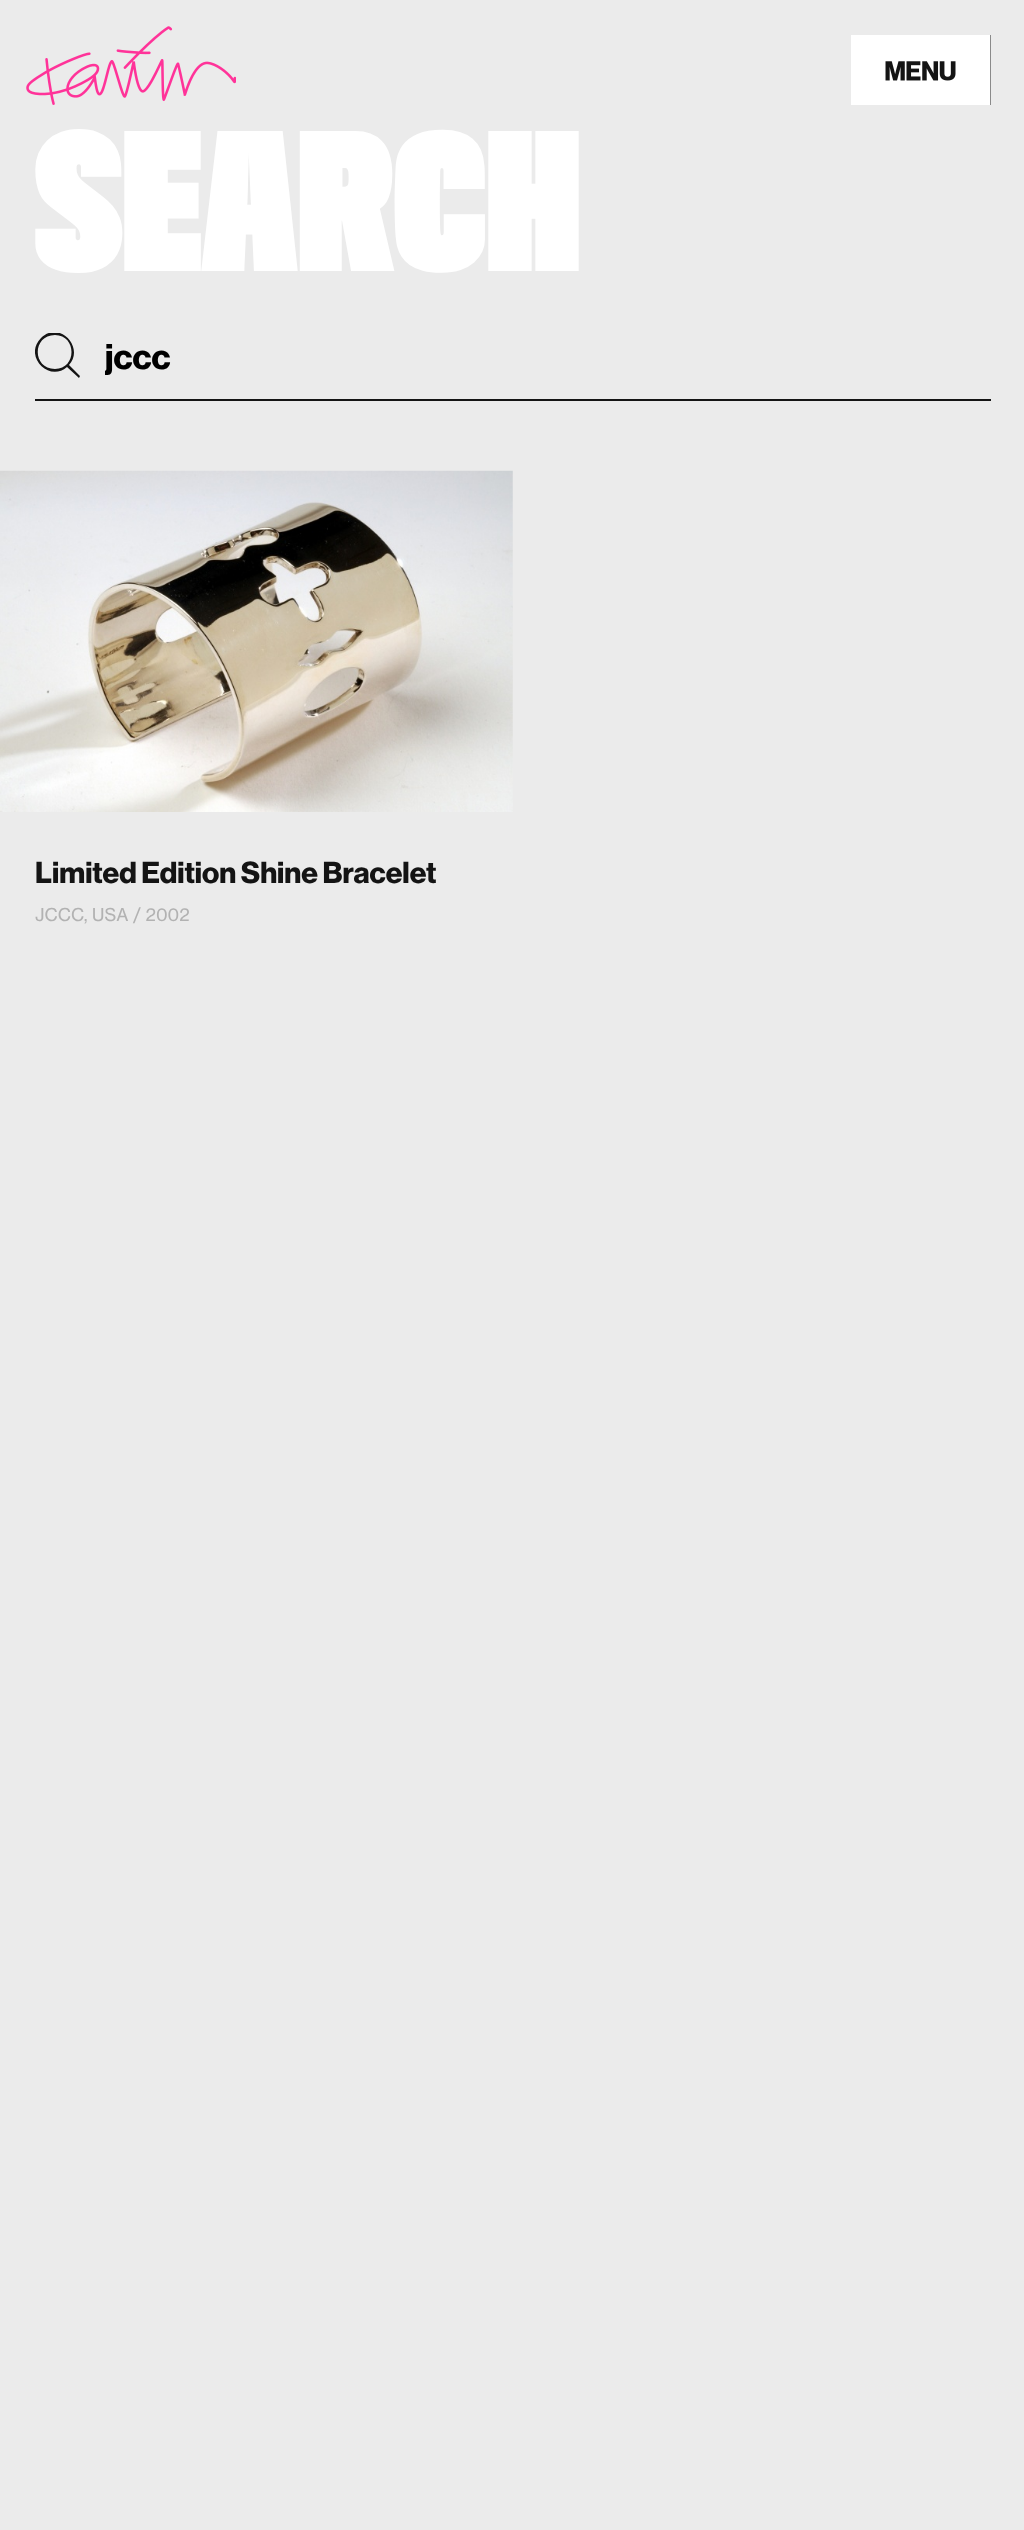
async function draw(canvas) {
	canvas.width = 1024;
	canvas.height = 2530;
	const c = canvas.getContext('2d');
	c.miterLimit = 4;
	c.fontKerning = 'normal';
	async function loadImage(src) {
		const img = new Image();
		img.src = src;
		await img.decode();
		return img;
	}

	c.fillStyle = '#ebebeb';
	c.fillRect(0, 0, 1024, 2530);
	c.drawImage(await loadImage('img1.png'), 26, 26, 210, 79);
	c.fillStyle = '#141414';
	c.fillRect(885, 35, 106, 70);
	c.drawImage(await loadImage('img2.png'), 851, 35, 140, 70);
	c.font = '900 175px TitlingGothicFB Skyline';
	c.fillStyle = '#fff';
	c.fillText('SEARCH', 35, 271);
	c.save();
	c.beginPath();
	c.rect(35, 333, 46, 45);
	c.clip();
	c.fillStyle = '#141414';
	c.beginPath();
	c.moveTo(69, 365);
	c.bezierCurveTo(85, 347, 59, 320, 41, 338);
	c.bezierCurveTo(23, 356, 49, 383, 67, 367);
	c.lineTo(79, 378);
	c.lineTo(80, 376);
	c.closePath();
	c.moveTo(55, 369);
	c.bezierCurveTo(32, 369, 32, 335, 55, 335);
	c.bezierCurveTo(77, 335, 77, 369, 55, 369);
	c.closePath();
	c.fill('evenodd');
	c.restore();
	c.fillStyle = '#141414';
	c.fillRect(35, 399, 956, 2);
	c.save();
	c.beginPath();
	c.rect(105, 333, 798, 49);
	c.clip();
	c.font = 'bold 35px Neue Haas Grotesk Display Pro';
	c.fillStyle = '#000';
	c.fillText('jccc', 105, 369);
	c.restore();
	c.drawImage(await loadImage('img3.png'), 0, 470, 513, 342);
	c.font = 'bold 29.75px Neue Haas Grotesk Display Pro';
	c.fillText('Limited Edition Shine Bracelet', 35, 883);
	c.font = '17.5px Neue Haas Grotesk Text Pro';
	c.fillStyle = '#b2b2b2';
	c.fillText('JCCC, USA / 2002', 35, 921);
}

draw(document.querySelector('canvas'));
